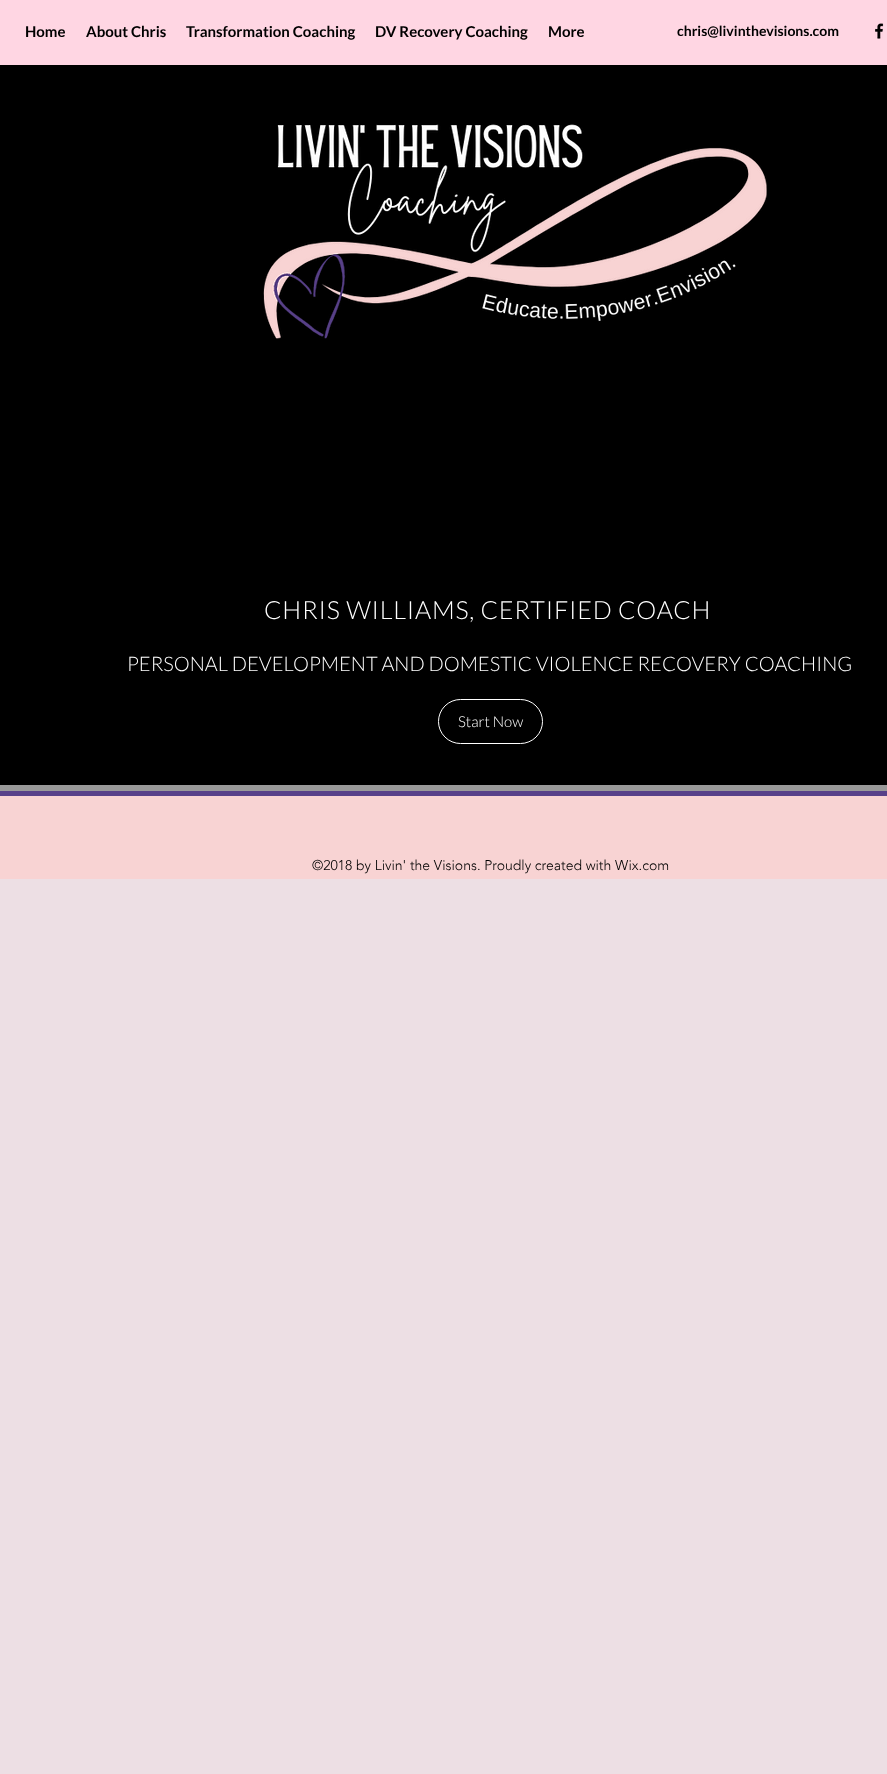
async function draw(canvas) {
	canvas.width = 887;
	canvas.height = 1774;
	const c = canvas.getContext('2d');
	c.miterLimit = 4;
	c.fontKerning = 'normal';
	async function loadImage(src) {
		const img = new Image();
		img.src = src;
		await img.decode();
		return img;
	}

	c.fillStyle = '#eddfe4';
	c.fillRect(0, 0, 887, 1774);
	c.fillStyle = '#ffd6e3';
	c.fillRect(0, 0, 887, 65);
	c.font = 'bold 15px Lato';
	c.fillStyle = '#000';
	for (const [text, x, y] of [
		['Home', 25, 37],
		['About Chris', 86, 37],
		['Transformation Coaching', 186, 37],
		['DV Recovery Coaching', 375, 37],
		['More', 548, 37],
	]) {
		c.fillText(text, x, y);
	}
	c.font = 'bold 14px Lato';
	c.fillText('chris@livinthevisions.com', 677, 36);
	c.drawImage(await loadImage('img1.png'), 875, 23, 9, 16);
	c.fillRect(0, 65, 887, 720);
	c.drawImage(await loadImage('img2.png'), 263, 124, 504, 215);
	c.letterSpacing = '0.75px';
	c.font = '300 25px Lato';
	c.fillStyle = '#fff';
	c.fillText('CHRIS WILLIAMS, CERTIFIED COACH', 264, 619);
	c.letterSpacing = '0px';
	c.font = '300 20px Lato';
	c.fillText('PERSONAL DEVELOPMENT AND DOMESTIC VIOLENCE RECOVERY COACHING', 127, 671);
	c.beginPath();
	c.roundRect(438.5, 699.5, 104, 44, 22);
	c.strokeStyle = '#fff';
	c.stroke();
	c.font = '300 15px Lato';
	c.fillText('Start Now', 458, 727);
	for (const [x, y, w, h, color] of [
		[0, 785, 887, 6, '#999'],
		[0, 796, 887, 83, '#f8d3d3'],
		[0, 791, 887, 5, '#584089'],
	]) {
		c.fillStyle = color;
		c.fillRect(x, y, w, h);
	}
	c.font = '300 14px "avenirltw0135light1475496"';
	c.fillStyle = '#000';
	c.fillText('©2018 by Livin\' the Visions. Proudly created with Wix.com', 312, 870);
}

draw(document.querySelector('canvas'));
